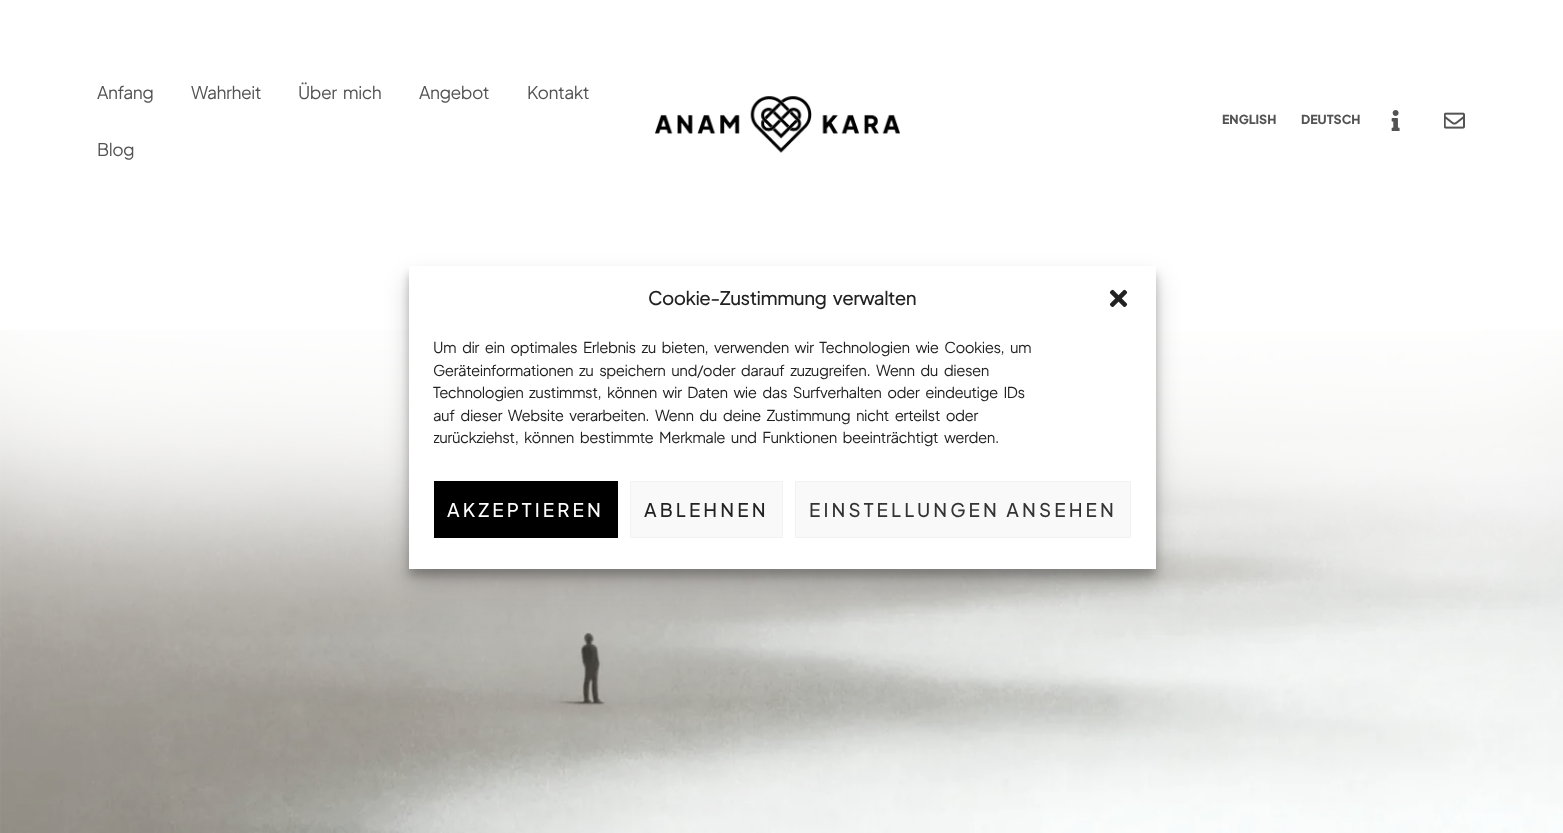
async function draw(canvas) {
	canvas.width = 1563;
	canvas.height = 833;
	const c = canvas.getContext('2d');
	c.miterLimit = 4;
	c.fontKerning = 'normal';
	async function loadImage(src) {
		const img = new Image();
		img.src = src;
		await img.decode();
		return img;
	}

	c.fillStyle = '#fff';
	c.fillRect(0, 0, 1563, 833);
	c.letterSpacing = '-0.5px';
	c.font = '17.5px Plus Jakarta Sans';
	c.fillStyle = '#535353';
	c.fillText('Anfang', 97, 99);
	c.fillText('Wahrheit', 191, 99);
	c.wordSpacing = '3.75px';
	c.fillText('Über mich', 298, 99);
	c.wordSpacing = '0px';
	for (const [text, x, y] of [
		['Angebot', 419, 99],
		['Kontakt', 527, 99],
		['Blog', 97, 156],
	]) {
		c.fillText(text, x, y);
	}
	c.drawImage(await loadImage('img1.png'), 655, 96, 245, 57);
	c.letterSpacing = '0px';
	c.font = '800 12.5px Plus Jakarta Sans';
	c.fillText('ENGLISH', 1222, 124);
	c.fillText('DEUTSCH', 1301, 124);
	c.drawImage(await loadImage('img2.png'), 1391, 110, 9, 21);
	c.drawImage(await loadImage('img3.png'), 1444, 112, 21, 17);
	c.drawImage(await loadImage('img5.png'), 0, 330, 1563, 503);
	c.fillStyle = '#0000003b';
	c.filter = 'blur(4px)';
	c.beginPath();
	c.rect(409, 274, 747, 302);
	c.fill();
	c.filter = 'none';
	c.fillStyle = '#00000030';
	c.filter = 'blur(12.5px)';
	c.beginPath();
	c.rect(409, 279, 747, 302);
	c.fill();
	c.filter = 'none';
	c.fillStyle = '#fff';
	c.fillRect(409, 266, 747, 303);
	c.letterSpacing = '-0.5px';
	c.wordSpacing = '3.75px';
	c.font = '500 18.75px Plus Jakarta Sans';
	c.fillStyle = '#222';
	c.fillText('Cookie-Zustimmung verwalten', 648, 305);
	c.drawImage(await loadImage('img4.png'), 1109, 289, 19, 18);
	c.font = '15px Plus Jakarta Sans';
	for (const [text, x, y] of [
		['Um dir ein optimales Erlebnis zu bieten, verwenden wir Technologien wie Cookies, um', 433, 353],
		['Geräteinformationen zu speichern und/oder darauf zuzugreifen. Wenn du diesen', 433, 376],
		['Technologien zustimmst, können wir Daten wie das Surfverhalten oder eindeutige IDs', 433, 398],
		['auf dieser Website verarbeiten. Wenn du deine Zustimmung nicht erteilst oder', 433, 421],
	]) {
		c.fillText(text, x, y);
	}
	c.save();
	c.beginPath();
	c.rect(434, 338, 697, 118);
	c.clip();
	c.fillText('zurückziehst, können bestimmte Merkmale und Funktionen beeinträchtigt werden.', 433, 443);
	c.restore();
	c.fillStyle = '#000';
	c.fillRect(434, 481, 184, 57);
	c.letterSpacing = '3.1px';
	c.wordSpacing = '0px';
	c.font = '500 18.75px Plus Jakarta Sans';
	c.fillStyle = '#fff';
	c.fillText('AKZEPTIEREN', 447, 517);
	c.fillStyle = '#f9f9f9';
	c.beginPath();
	c.rect(630.5, 481.5, 152, 56);
	c.fill();
	c.strokeStyle = '#f2f2f2';
	c.stroke();
	c.fillStyle = '#222';
	c.fillText('ABLEHNEN', 644, 517);
	c.fillStyle = '#f9f9f9';
	c.beginPath();
	c.rect(795.5, 481.5, 335, 56);
	c.fill();
	c.stroke();
	c.fillStyle = '#333';
	c.fillText('EINSTELLUNGEN ANSEHEN', 809, 517);
}

draw(document.querySelector('canvas'));
